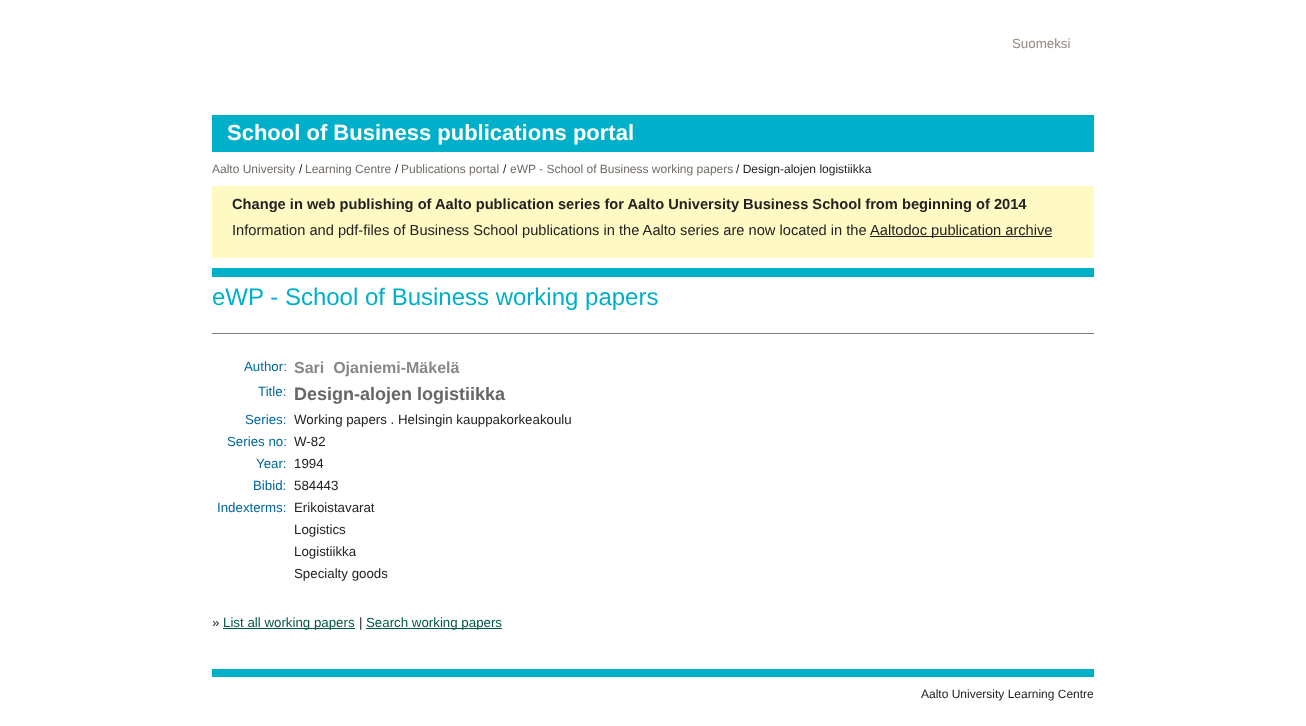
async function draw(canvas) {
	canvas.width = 1306;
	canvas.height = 726;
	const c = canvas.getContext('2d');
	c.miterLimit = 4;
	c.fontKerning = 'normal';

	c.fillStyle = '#fff';
	c.fillRect(0, 0, 1306, 726);
	c.font = '13.3px Liberation Sans';
	c.fillStyle = '#928881';
	c.fillText('Suomeksi', 1012, 48);
	c.fillStyle = '#00b0ca';
	c.fillRect(212, 115, 882, 37);
	c.font = 'bold 22px Liberation Sans';
	c.fillStyle = '#fff';
	c.fillText('School of Business publications portal', 227, 140);
	c.font = '12px Liberation Sans';
	c.fillStyle = '#716b63';
	c.fillText('Aalto University', 212, 173);
	c.fillStyle = '#222';
	c.fillText('/', 299, 173);
	c.fillStyle = '#716b63';
	c.fillText('Learning Centre', 305, 173);
	c.fillStyle = '#222';
	c.fillText('/', 395, 173);
	c.fillStyle = '#716b63';
	c.fillText('Publications portal', 401, 173);
	c.fillStyle = '#222';
	c.fillText('/', 503, 173);
	c.fillStyle = '#716b63';
	c.fillText('eWP - School of Business working papers', 510, 173);
	c.fillStyle = '#222';
	c.fillText('/ Design-alojen logistiikka', 736, 173);
	c.fillStyle = '#fff9c4';
	c.fillRect(212, 186, 882, 72);
	c.font = 'bold 14.67px Liberation Sans';
	c.fillStyle = '#222';
	c.fillText('Change in web publishing of Aalto publication series for Aalto University Business School from beginning of 2014', 232, 209);
	c.font = '14.67px Liberation Sans';
	c.fillText('Information and pdf-files of Business School publications in the Aalto series are now located in the', 232, 235);
	c.fillRect(870, 236, 182, 1);
	c.fillText('Aaltodoc publication archive', 870, 235);
	c.fillStyle = '#00b0ca';
	c.fillRect(212, 268, 882, 9);
	c.font = '24px Liberation Sans';
	c.fillText('eWP - School of Business working papers', 212, 305);
	c.fillStyle = '#808080';
	c.fillRect(212, 333, 882, 1);
	c.font = '13.3px Liberation Sans';
	c.fillStyle = '#069';
	c.fillText('Author:', 244, 371);
	c.font = 'bold 16px Liberation Sans';
	c.fillStyle = '#888';
	c.fillText('Sari  Ojaniemi-Mäkelä', 294, 373);
	c.font = '13.3px Liberation Sans';
	c.fillStyle = '#069';
	c.fillText('Title:', 258, 396);
	c.font = 'bold 18px Liberation Sans';
	c.fillStyle = '#666';
	c.fillText('Design-alojen logistiikka', 294, 400);
	c.font = '13.3px Liberation Sans';
	c.fillStyle = '#069';
	c.fillText('Series:', 245, 424);
	c.fillStyle = '#222';
	c.fillText('Working papers . Helsingin kauppakorkeakoulu', 294, 424);
	c.fillStyle = '#069';
	c.fillText('Series no:', 227, 446);
	c.fillStyle = '#222';
	c.fillText('W-82', 294, 446);
	c.fillStyle = '#069';
	c.fillText('Year:', 256, 468);
	c.fillStyle = '#222';
	c.fillText('1994', 294, 468);
	c.fillStyle = '#069';
	c.fillText('Bibid:', 253, 490);
	c.fillStyle = '#222';
	c.fillText('584443', 294, 490);
	c.fillStyle = '#069';
	c.fillText('Indexterms:', 217, 512);
	c.fillStyle = '#222';
	for (const [text, x, y] of [
		['Erikoistavarat', 294, 512],
		['Logistics', 294, 534],
		['Logistiikka', 294, 556],
		['Specialty goods', 294, 578],
		['»', 212, 627],
	]) {
		c.fillText(text, x, y);
	}
	c.fillStyle = '#025845';
	c.fillRect(223, 628, 132, 1);
	c.fillText('List all working papers', 223, 627);
	c.fillStyle = '#222';
	c.fillText('|', 359, 627);
	c.fillStyle = '#025845';
	c.fillRect(366, 628, 136, 1);
	c.fillText('Search working papers', 366, 627);
	c.fillStyle = '#00b0ca';
	c.fillRect(212, 669, 882, 8);
	c.font = '12px Liberation Sans';
	c.fillStyle = '#222';
	c.fillText('Aalto University Learning Centre', 921, 698);
}

draw(document.querySelector('canvas'));
